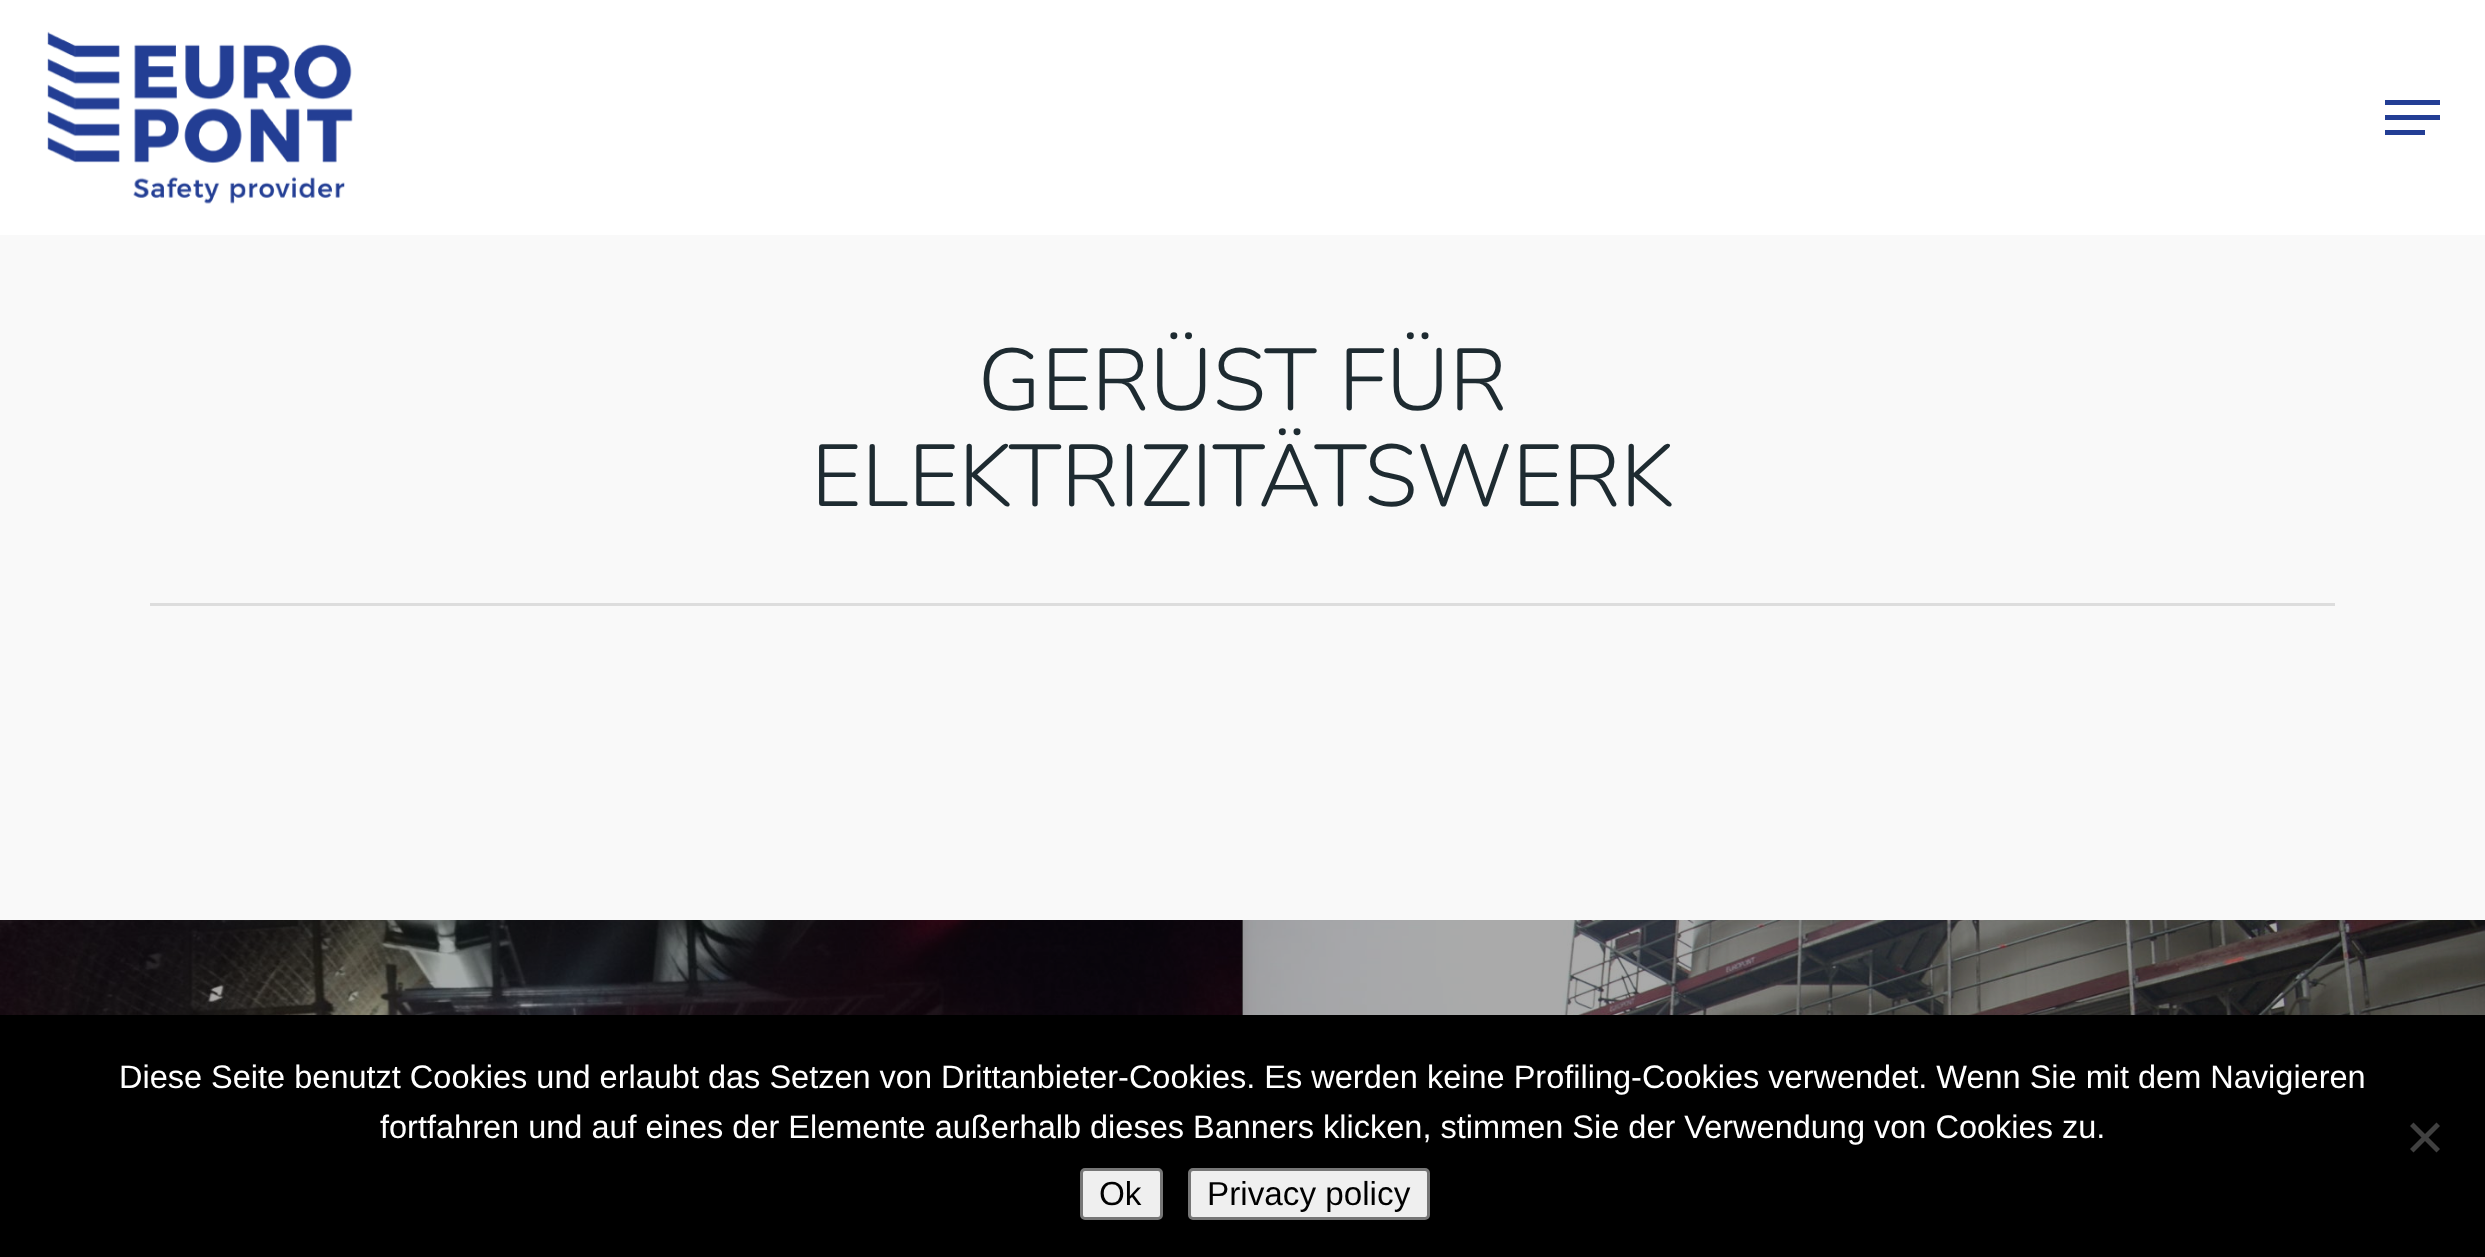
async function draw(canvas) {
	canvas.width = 2485;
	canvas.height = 1257;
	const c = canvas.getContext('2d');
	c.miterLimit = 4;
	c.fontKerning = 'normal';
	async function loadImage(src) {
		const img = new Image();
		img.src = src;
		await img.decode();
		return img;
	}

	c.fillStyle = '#f9f9f9';
	c.fillRect(0, 0, 2485, 1257);
	c.fillStyle = '#fff';
	c.fillRect(0, 0, 2485, 235);
	c.drawImage(await loadImage('img1.png'), 47, 31, 306, 173);
	for (const [x, y, w, h, color] of [
		[2385, 100, 55, 5, '#233e95'],
		[2385, 130, 40, 5, '#233e95'],
		[2385, 115, 55, 5, '#233e95'],
		[150, 603, 2185, 3, '#ddd'],
	]) {
		c.fillStyle = color;
		c.fillRect(x, y, w, h);
	}
	c.font = '300 87.5px Nunito';
	c.fillStyle = '#1e2b31';
	c.fillText('GERÜST FÜR', 978, 410);
	c.fillText('ELEKTRIZITÄTSWERK', 811, 506);
	c.fillStyle = '#333';
	c.fillRect(1242, 920, 1, 95);
	c.drawImage(await loadImage('img2.png'), 0, 920, 1243, 95);
	c.drawImage(await loadImage('img3.png'), 1242, 920, 1243, 95);
	c.fillStyle = '#0d0d0d59';
	c.fillRect(0, 920, 1243, 95);
	c.fillStyle = '#000';
	c.fillRect(0, 1015, 2485, 242);
	c.font = '32.5px Liberation Sans';
	c.fillStyle = '#fff';
	c.fillText('Diese Seite benutzt Cookies und erlaubt das Setzen von Drittanbieter-Cookies. Es werden keine Profiling-Cookies verwendet. Wenn Sie mit dem Navigieren', 119, 1088);
	c.fillText('fortfahren und auf eines der Elemente außerhalb dieses Banners klicken, stimmen Sie der Verwendung von Cookies zu.', 380, 1138);
	c.fillStyle = '#404040';
	c.beginPath();
	c.moveTo(2436.5, 1122.5);
	c.lineTo(2440, 1126);
	c.lineTo(2413.5, 1152.5);
	c.lineTo(2410, 1149);
	c.closePath();
	c.fill();
	c.beginPath();
	c.moveTo(2410, 1126);
	c.lineTo(2413.5, 1122.5);
	c.lineTo(2440, 1149);
	c.lineTo(2436.5, 1152.5);
	c.closePath();
	c.fill();
	c.fillStyle = '#efefef';
	c.beginPath();
	c.roundRect(1081.5, 1169.5, 80, 49, 3.5);
	c.fill();
	c.strokeStyle = '#767676';
	c.lineWidth = 3;
	c.stroke();
	c.font = '33.25px Liberation Sans';
	c.fillStyle = '#000';
	c.fillText('Ok', 1099, 1205);
	c.fillStyle = '#efefef';
	c.beginPath();
	c.roundRect(1189.5, 1169.5, 239, 49, 3.5);
	c.fill();
	c.stroke();
	c.fillStyle = '#000';
	c.fillText('Privacy policy', 1207, 1205);
}

draw(document.querySelector('canvas'));
